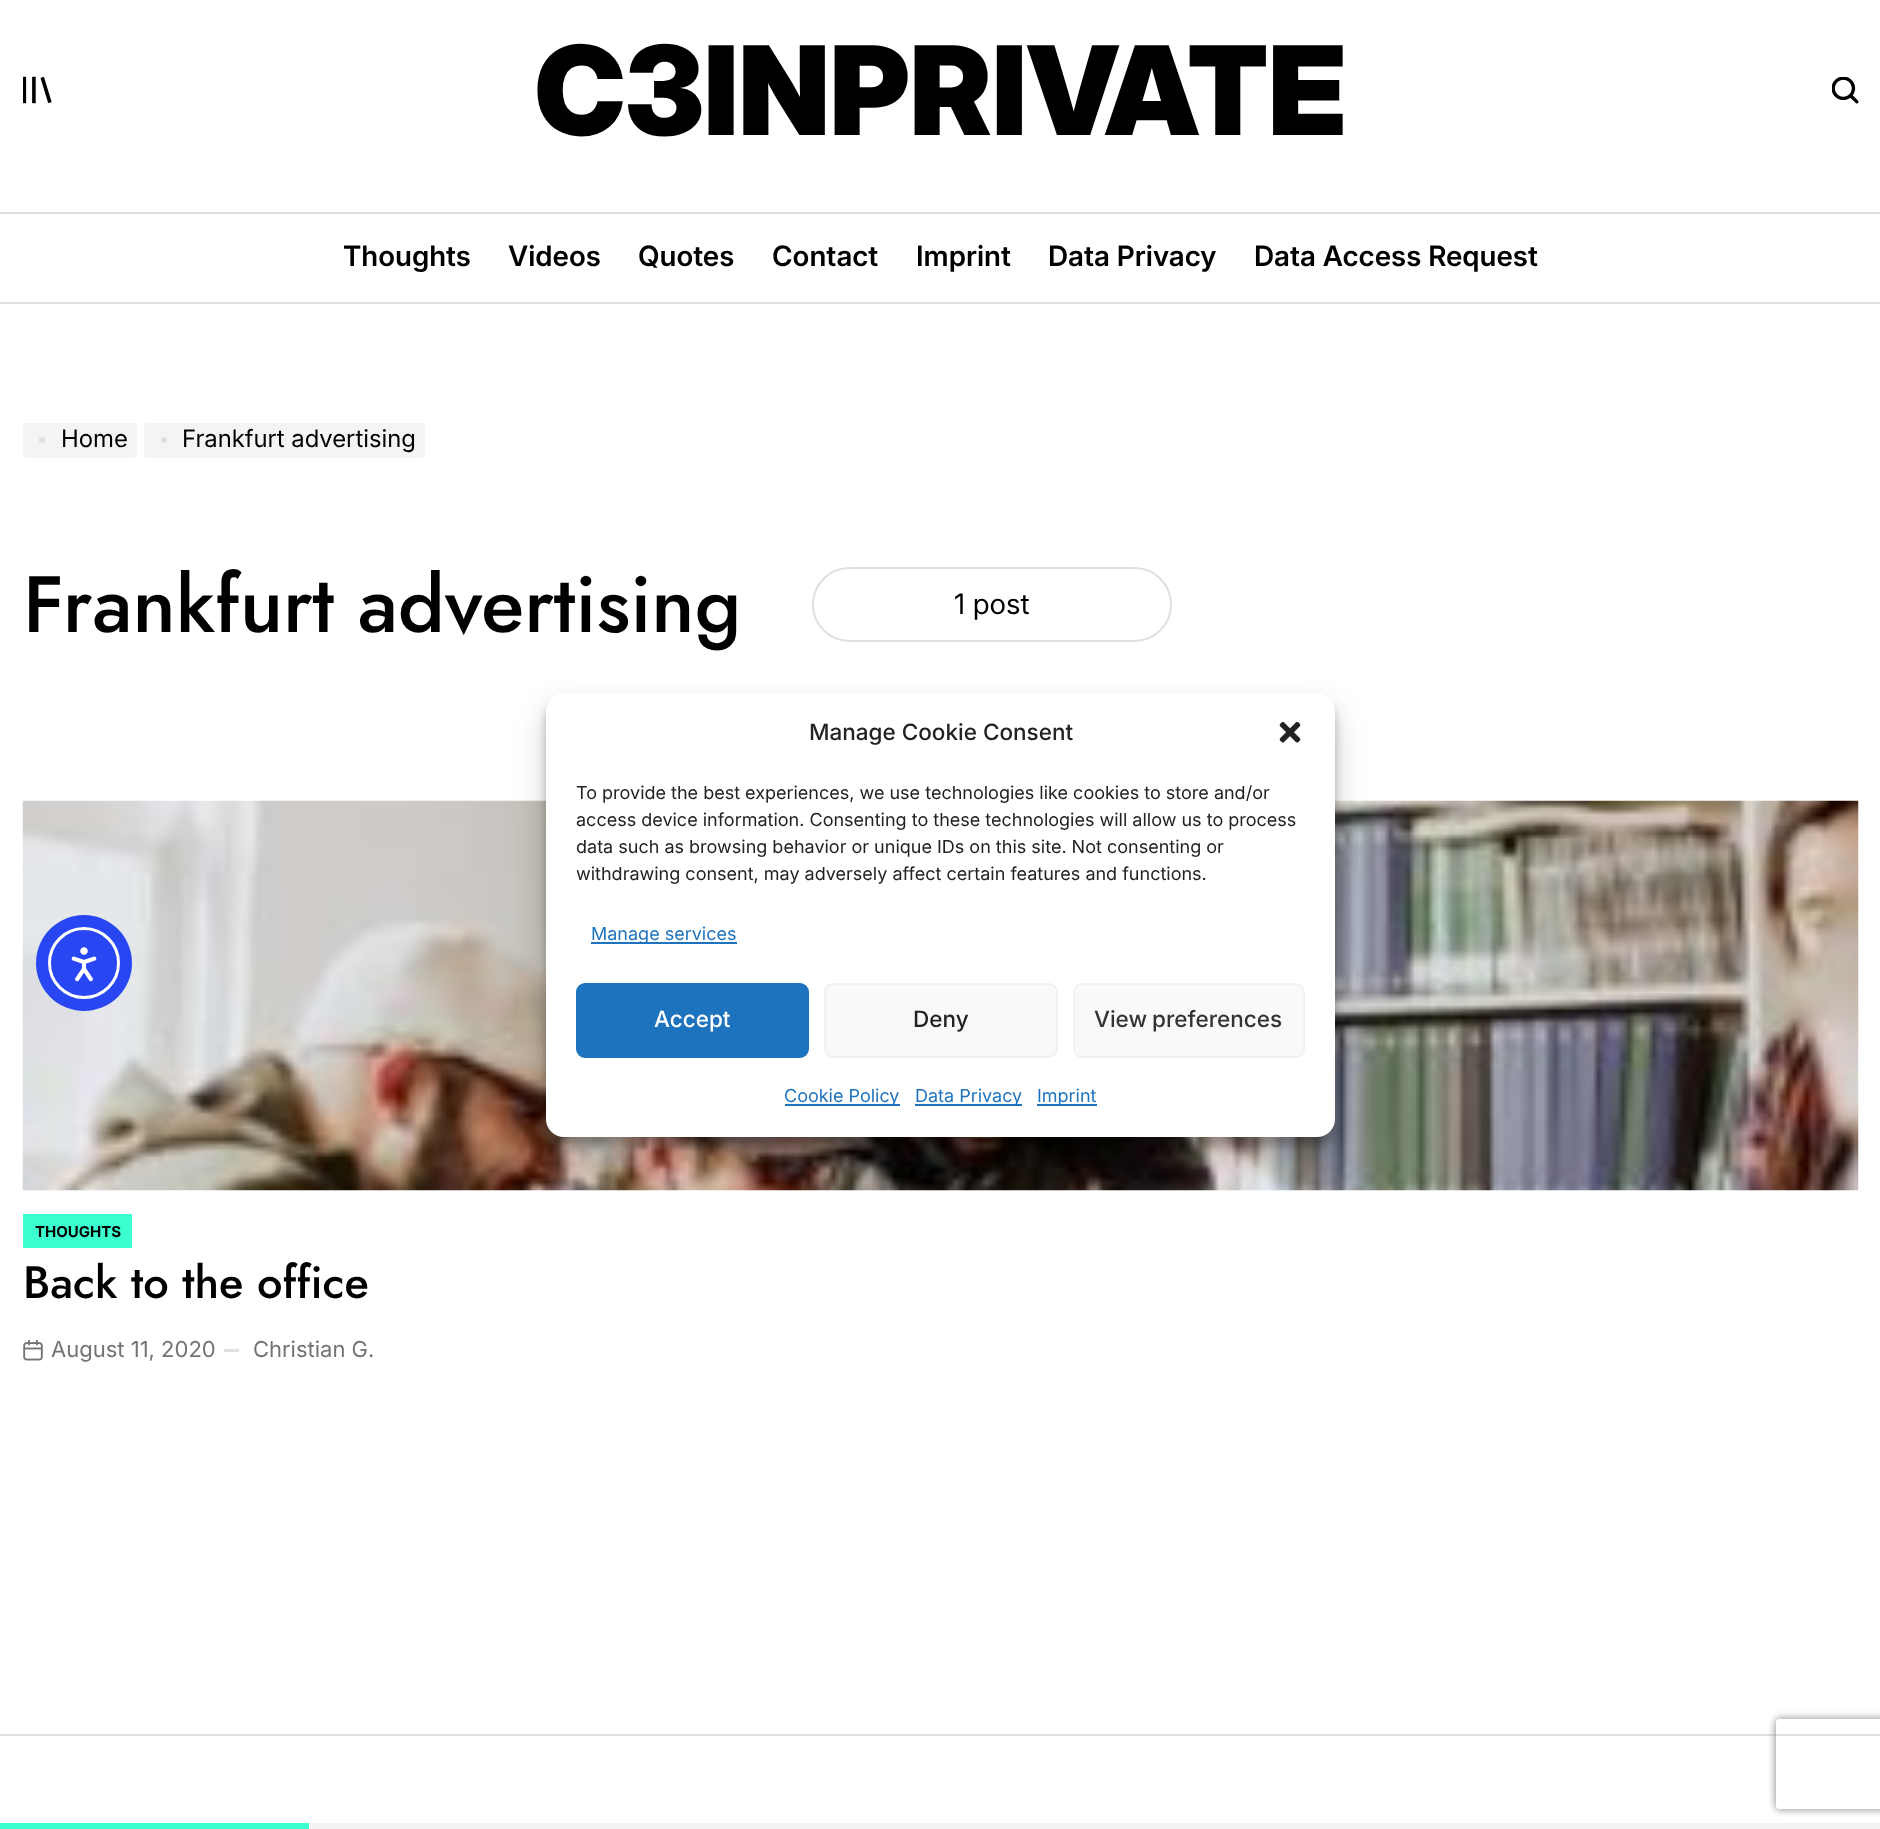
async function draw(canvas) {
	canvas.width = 1880;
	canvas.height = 1829;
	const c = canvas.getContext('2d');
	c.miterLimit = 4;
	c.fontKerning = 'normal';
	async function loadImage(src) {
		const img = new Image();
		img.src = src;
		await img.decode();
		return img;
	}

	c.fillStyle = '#fff';
	c.fillRect(0, 0, 1880, 1829);
	c.fillStyle = '#dedfdf';
	c.fillRect(0, 212, 1880, 2);
	c.drawImage(await loadImage('img1.png'), 23, 76, 29, 28);
	c.font = '900 123.5px Inter';
	c.fillStyle = '#000';
	c.fillText('C3INPRIVATE', 535, 135);
	c.drawImage(await loadImage('img2.png'), 1832, 77, 27, 27);
	c.fillStyle = '#dedfdf';
	c.fillRect(0, 302, 1880, 2);
	c.font = '600 28.1px Inter';
	c.fillStyle = '#000';
	for (const [text, x, y] of [
		['Thoughts', 343, 266],
		['Videos', 508, 266],
		['Quotes', 638, 266],
		['Contact', 772, 266],
		['Imprint', 916, 266],
		['Data Privacy', 1048, 266],
		['Data Access Request', 1254, 266],
	]) {
		c.fillText(text, x, y);
	}
	c.fillStyle = '#f4f4f4';
	c.beginPath();
	c.roundRect(23, 423, 114, 35, 3);
	c.fill();
	c.fillStyle = '#dedfdf';
	c.beginPath();
	c.arc(42, 440, 3, 0, 2 * Math.PI);
	c.fill();
	c.font = '24px "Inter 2"';
	c.fillStyle = '#000';
	c.fillText('Home', 61, 447);
	c.fillStyle = '#f4f4f4';
	c.beginPath();
	c.roundRect(144, 423, 281, 35, 3);
	c.fill();
	c.fillStyle = '#dedfdf';
	c.beginPath();
	c.arc(164, 440, 3, 0, 2 * Math.PI);
	c.fill();
	c.fillStyle = '#000';
	c.fillText('Frankfurt advertising', 182, 447);
	c.font = '500 79.5px Jost';
	c.fillText('Frankfurt advertising', 23, 632);
	c.beginPath();
	c.roundRect(813, 568, 358, 73, 36.5);
	c.strokeStyle = '#dedfdf';
	c.lineWidth = 2;
	c.stroke();
	c.font = '28.1px Inter';
	c.fillText('1 post', 954, 614);
	c.drawImage(await loadImage('img3.png'), 22, 800, 1837, 391);
	c.fillStyle = '#3cffd0';
	c.fillRect(23, 1214, 109, 34);
	c.font = 'bold 15px Inter';
	c.fillStyle = '#000';
	c.fillText('THOUGHTS', 35, 1237);
	c.font = '500 45.25px Jost';
	c.fillText('Back to the office', 23, 1298);
	c.drawImage(await loadImage('img4.png'), 23, 1340, 20, 21);
	c.font = '22px "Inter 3"';
	c.fillStyle = '#737373';
	c.fillText('August 11, 2020', 51, 1357);
	c.fillStyle = '#dedfdf';
	c.fillRect(224, 1349, 15, 3);
	c.fillStyle = '#737373';
	c.fillText('Christian G.', 253, 1357);
	for (const [x, y, w, h, color] of [
		[0, 1734, 1880, 2, '#dedfdf'],
		[309, 1823, 1571, 6, '#f3f3f3'],
		[0, 1823, 309, 6, '#3cffd0'],
	]) {
		c.fillStyle = color;
		c.fillRect(x, y, w, h);
	}
	c.fillStyle = '#2847f3';
	c.beginPath();
	c.arc(84, 963, 48, 0, 2 * Math.PI);
	c.fill();
	c.beginPath();
	c.arc(84, 963, 34.5, 0, 2 * Math.PI);
	c.strokeStyle = '#fff';
	c.lineWidth = 3;
	c.stroke();
	c.drawImage(await loadImage('img5.png'), 71, 947, 26, 35);
	c.fillStyle = '#0000003b';
	c.filter = 'blur(4.5px)';
	c.beginPath();
	c.roundRect(546, 702, 789, 444, 18);
	c.fill();
	c.filter = 'none';
	c.fillStyle = '#00000030';
	c.filter = 'blur(15px)';
	c.beginPath();
	c.roundRect(546, 708, 789, 444, 18);
	c.fill();
	c.filter = 'none';
	c.fillStyle = '#fff';
	c.beginPath();
	c.roundRect(546, 693, 789, 444, 18);
	c.fill();
	c.font = '500 22.5px Inter';
	c.fillStyle = '#222';
	c.fillText('Manage Cookie Consent', 809, 740);
	c.drawImage(await loadImage('img6.png'), 1279, 721, 22, 22);
	c.font = '18px "Inter 3"';
	for (const [text, x, y] of [
		['To provide the best experiences, we use technologies like cookies to store and/or', 576, 799],
		['access device information. Consenting to these technologies will allow us to process', 576, 826],
		['data such as browsing behavior or unique IDs on this site. Not consenting or', 576, 853],
		['withdrawing consent, may adversely affect certain features and functions.', 576, 880],
	]) {
		c.fillText(text, x, y);
	}
	c.fillStyle = '#1e73be';
	c.fillRect(591, 942, 146, 2);
	c.fillText('Manage services', 591, 940);
	c.beginPath();
	c.roundRect(577, 984, 231, 73, 8);
	c.fill();
	c.strokeStyle = '#1e73be';
	c.lineWidth = 2;
	c.stroke();
	c.font = '500 22.5px Inter';
	c.fillStyle = '#fff';
	c.fillText('Accept', 654, 1027);
	c.fillStyle = '#f9f9f9';
	c.beginPath();
	c.roundRect(825, 984, 232, 73, 8);
	c.fill();
	c.strokeStyle = '#f2f2f2';
	c.stroke();
	c.fillStyle = '#222';
	c.fillText('Deny', 913, 1027);
	c.fillStyle = '#f9f9f9';
	c.beginPath();
	c.roundRect(1074, 984, 230, 73, 8);
	c.fill();
	c.stroke();
	c.wordSpacing = '-1px';
	c.fillStyle = '#333';
	c.fillText('View preferences', 1094, 1027);
	c.fillStyle = '#1e73be';
	c.fillRect(785, 1104, 115, 2);
	c.wordSpacing = '0px';
	c.font = '18px "Inter 3"';
	c.fillText('Cookie Policy', 784, 1102);
	c.fillRect(915, 1104, 107, 2);
	c.fillText('Data Privacy', 915, 1102);
	c.fillRect(1037, 1104, 60, 2);
	c.fillText('Imprint', 1037, 1102);
	c.save();
	c.beginPath();
	c.moveTo(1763, 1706);
	c.lineTo(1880, 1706);
	c.lineTo(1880, 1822);
	c.lineTo(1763, 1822);
	c.closePath();
	c.moveTo(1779, 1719);
	c.lineTo(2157, 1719);
	c.bezierCurveTo(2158.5, 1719, 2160, 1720.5, 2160, 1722);
	c.lineTo(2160, 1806);
	c.bezierCurveTo(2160, 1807.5, 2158.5, 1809, 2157, 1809);
	c.lineTo(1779, 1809);
	c.bezierCurveTo(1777.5, 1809, 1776, 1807.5, 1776, 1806);
	c.lineTo(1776, 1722);
	c.bezierCurveTo(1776, 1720.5, 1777.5, 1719, 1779, 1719);
	c.closePath();
	c.clip('evenodd');
	c.fillStyle = '#808080';
	c.filter = 'blur(4px)';
	c.beginPath();
	c.roundRect(1776, 1719, 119, 90, 3);
	c.fill();
	c.filter = 'none';
	c.restore();
}

draw(document.querySelector('canvas'));
